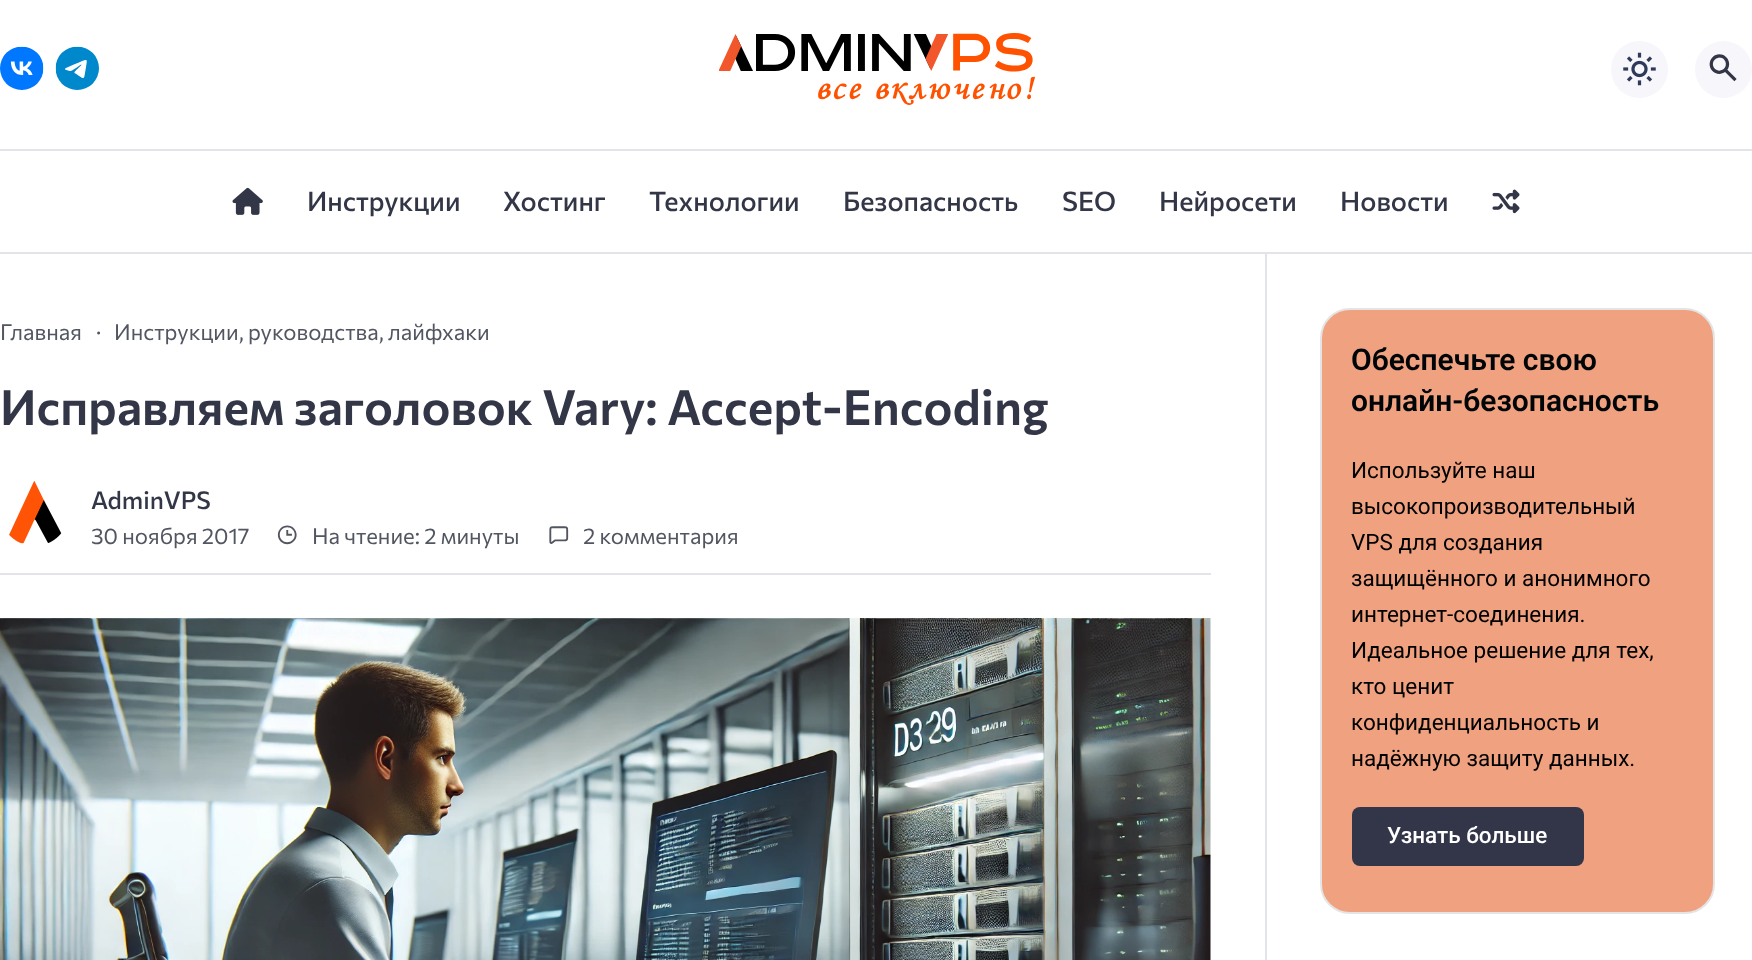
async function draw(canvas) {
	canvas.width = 1752;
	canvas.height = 960;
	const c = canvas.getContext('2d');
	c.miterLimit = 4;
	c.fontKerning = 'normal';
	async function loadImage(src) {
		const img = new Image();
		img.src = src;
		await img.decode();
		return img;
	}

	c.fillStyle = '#fff';
	c.fillRect(0, 0, 1752, 960);
	c.fillStyle = '#e3e4ea';
	c.fillRect(0, 252, 1752, 2);
	c.drawImage(await loadImage('img1.png'), 0, 46, 44, 44);
	c.drawImage(await loadImage('img2.png'), 55, 46, 44, 44);
	c.drawImage(await loadImage('img3.png'), 719, 33, 316, 72);
	c.fillStyle = '#f7f6fb';
	c.beginPath();
	c.arc(1639.5, 69.5, 28.5, 0, 2 * Math.PI);
	c.fill();
	c.drawImage(await loadImage('img4.png'), 1623, 52, 33, 34);
	c.beginPath();
	c.arc(1723.5, 69.5, 28.5, 0, 2 * Math.PI);
	c.fill();
	c.drawImage(await loadImage('img5.png'), 1709, 54, 28, 28);
	c.fillStyle = '#e3e4ea';
	c.fillRect(0, 149, 1752, 2);
	c.drawImage(await loadImage('img6.png'), 232, 187, 31, 28);
	c.font = '500 27px Commissioner';
	c.fillStyle = '#333646';
	for (const [text, x, y] of [
		['Инструкции', 307, 211],
		['Хостинг', 503, 211],
		['Технологии', 649, 211],
		['Безопасность', 843, 211],
		['SEO', 1062, 211],
		['Нейросети', 1159, 211],
		['Новости', 1340, 211],
	]) {
		c.fillText(text, x, y);
	}
	c.drawImage(await loadImage('img7.png'), 1492, 189, 28, 25);
	c.fillStyle = '#e3e4ea';
	c.fillRect(0, 573, 1211, 2);
	c.font = '22.1px Commissioner';
	c.fillStyle = '#525661';
	for (const [text, x, y] of [
		['Главная', 0, 340],
		['·', 96, 340],
		['Инструкции, руководства, лайфхаки', 114, 340],
	]) {
		c.fillText(text, x, y);
	}
	c.font = '600 48.6px Commissioner';
	c.fillStyle = '#333646';
	c.fillText('Исправляем заголовок Vary: Accept-Encoding', 0, 425);
	c.drawImage(await loadImage('img8.png'), 9, 481, 53, 63);
	c.font = '500 24.5px Commissioner';
	c.fillText('AdminVPS', 91, 509);
	c.font = '22.1px Commissioner';
	c.fillStyle = '#525661';
	c.fillText('30 ноября 2017', 91, 544);
	c.drawImage(await loadImage('img9.png'), 277, 525, 20, 20);
	c.fillText('На чтение: 2 минуты', 312, 544);
	c.drawImage(await loadImage('img10.png'), 549, 526, 20, 18);
	c.fillText('2 комментария', 583, 544);
	c.drawImage(await loadImage('img11.png'), 0, 618, 1211, 342);
	c.fillStyle = '#e3e4ea';
	c.fillRect(1265, 254, 2, 706);
	c.fillStyle = '#f0a280';
	c.beginPath();
	c.roundRect(1321, 309, 393, 604, 29);
	c.fill();
	c.strokeStyle = '#e4e4e4';
	c.lineWidth = 2;
	c.stroke();
	c.font = '600 30px Roboto';
	c.fillStyle = '#000608';
	c.fillText('Обеспечьте свою', 1351, 370);
	c.fillText('онлайн-безопасность', 1351, 411);
	c.font = '22.5px Roboto';
	c.fillStyle = '#000';
	for (const [text, x, y] of [
		['Используйте наш', 1351, 478],
		['высокопроизводительный', 1351, 514],
		['VPS для создания', 1351, 550],
		['защищённого и анонимного', 1351, 586],
		['интернет-соединения.', 1351, 622],
		['Идеальное решение для тех,', 1351, 658],
		['кто ценит', 1351, 694],
		['конфиденциальность и', 1351, 730],
		['надёжную защиту данных.', 1351, 766],
	]) {
		c.fillText(text, x, y);
	}
	c.fillStyle = '#323648';
	c.beginPath();
	c.roundRect(1352, 807, 232, 59, 8);
	c.fill();
	c.font = '500 22.5px Roboto';
	c.fillStyle = '#fff';
	c.fillText('Узнать больше', 1387, 843);
}

draw(document.querySelector('canvas'));
